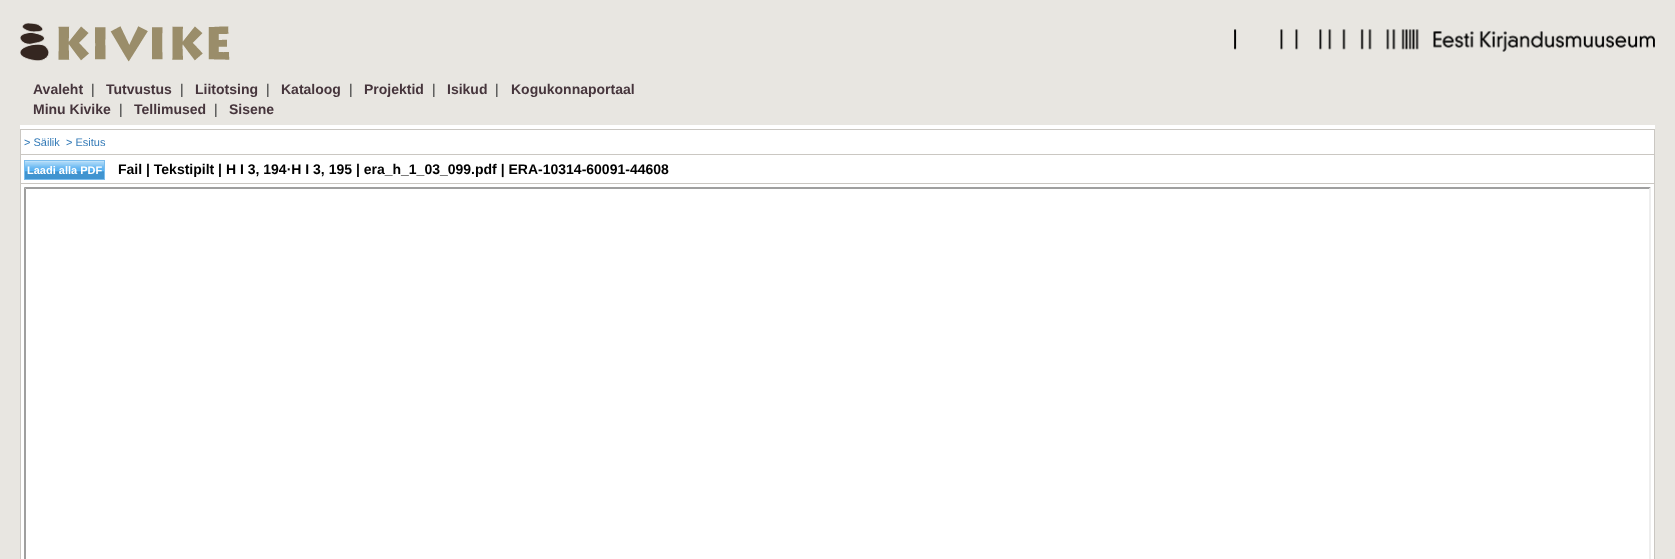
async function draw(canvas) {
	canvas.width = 1675;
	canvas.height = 559;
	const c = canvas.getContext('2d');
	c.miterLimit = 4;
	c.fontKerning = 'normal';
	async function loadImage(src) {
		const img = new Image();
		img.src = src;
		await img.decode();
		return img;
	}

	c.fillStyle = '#e8e6e1';
	c.fillRect(0, 0, 1675, 559);
	c.drawImage(await loadImage('img1.png'), 20, 23, 210, 39);
	c.drawImage(await loadImage('img2.png'), 1234, 29, 421, 23);
	c.font = 'bold 14px Liberation Sans';
	c.fillStyle = '#46353c';
	c.fillText('Avaleht', 33, 94);
	c.font = '14px Liberation Sans';
	c.fillStyle = '#333';
	c.fillText('|', 91, 94);
	c.font = 'bold 14px Liberation Sans';
	c.fillStyle = '#46353c';
	c.fillText('Tutvustus', 106, 94);
	c.font = '14px Liberation Sans';
	c.fillStyle = '#333';
	c.fillText('|', 180, 94);
	c.font = 'bold 14px Liberation Sans';
	c.fillStyle = '#46353c';
	c.fillText('Liitotsing', 195, 94);
	c.font = '14px Liberation Sans';
	c.fillStyle = '#333';
	c.fillText('|', 266, 94);
	c.font = 'bold 14px Liberation Sans';
	c.fillStyle = '#46353c';
	c.fillText('Kataloog', 281, 94);
	c.font = '14px Liberation Sans';
	c.fillStyle = '#333';
	c.fillText('|', 349, 94);
	c.font = 'bold 14px Liberation Sans';
	c.fillStyle = '#46353c';
	c.fillText('Projektid', 364, 94);
	c.font = '14px Liberation Sans';
	c.fillStyle = '#333';
	c.fillText('|', 432, 94);
	c.font = 'bold 14px Liberation Sans';
	c.fillStyle = '#46353c';
	c.fillText('Isikud', 447, 94);
	c.font = '14px Liberation Sans';
	c.fillStyle = '#333';
	c.fillText('|', 495, 94);
	c.font = 'bold 14px Liberation Sans';
	c.fillStyle = '#46353c';
	c.fillText('Kogukonnaportaal', 511, 94);
	c.fillText('Minu Kivike', 33, 114);
	c.font = '14px Liberation Sans';
	c.fillStyle = '#333';
	c.fillText('|', 119, 114);
	c.font = 'bold 14px Liberation Sans';
	c.fillStyle = '#46353c';
	c.fillText('Tellimused', 134, 114);
	c.font = '14px Liberation Sans';
	c.fillStyle = '#333';
	c.fillText('|', 214, 114);
	c.font = 'bold 14px Liberation Sans';
	c.fillStyle = '#46353c';
	c.fillText('Sisene', 229, 114);
	for (const [x, y, w, h, color] of [
		[20, 125, 1635, 434, '#fff'],
		[20, 129, 1635, 1, '#cac7c2'],
		[1654, 129, 1, 430, '#cac7c2'],
		[20, 129, 1, 430, '#cac7c2'],
	]) {
		c.fillStyle = color;
		c.fillRect(x, y, w, h);
	}
	c.font = '11px Liberation Sans';
	c.fillStyle = '#337ab7';
	c.fillText('> Säilik', 24, 146);
	c.fillText('> Esitus', 66, 146);
	c.fillStyle = '#cac7c2';
	c.fillRect(20, 154, 1635, 1);
	c.drawImage(await loadImage('img3.png'), 25, 161, 79, 18);
	c.strokeStyle = '#7bbded';
	c.strokeRect(24.5, 160.5, 80, 19);
	c.font = 'bold 11px Liberation Sans';
	c.fillStyle = '#fff';
	c.fillText('Laadi alla PDF', 27, 174);
	c.font = 'bold 14px Liberation Sans';
	c.fillStyle = '#000';
	c.fillText('Fail | Tekstipilt | H I 3, 194·H I 3, 195 | era_h_1_03_099.pdf | ERA-10314-60091-44608', 118, 174);
	c.fillStyle = '#cac7c2';
	c.fillRect(20, 183, 1635, 1);
	c.fillStyle = '#9f9f9f';
	c.beginPath();
	c.moveTo(24, 187);
	c.lineTo(1651, 187);
	c.lineTo(1649, 189);
	c.lineTo(26, 189);
	c.closePath();
	c.fill();
	c.beginPath();
	c.moveTo(24, 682);
	c.lineTo(24, 187);
	c.lineTo(26, 189);
	c.lineTo(26, 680);
	c.closePath();
	c.fill();
	c.fillStyle = '#eee';
	c.beginPath();
	c.moveTo(1651, 187);
	c.lineTo(1651, 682);
	c.lineTo(1649, 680);
	c.lineTo(1649, 189);
	c.closePath();
	c.fill();
}

draw(document.querySelector('canvas'));
